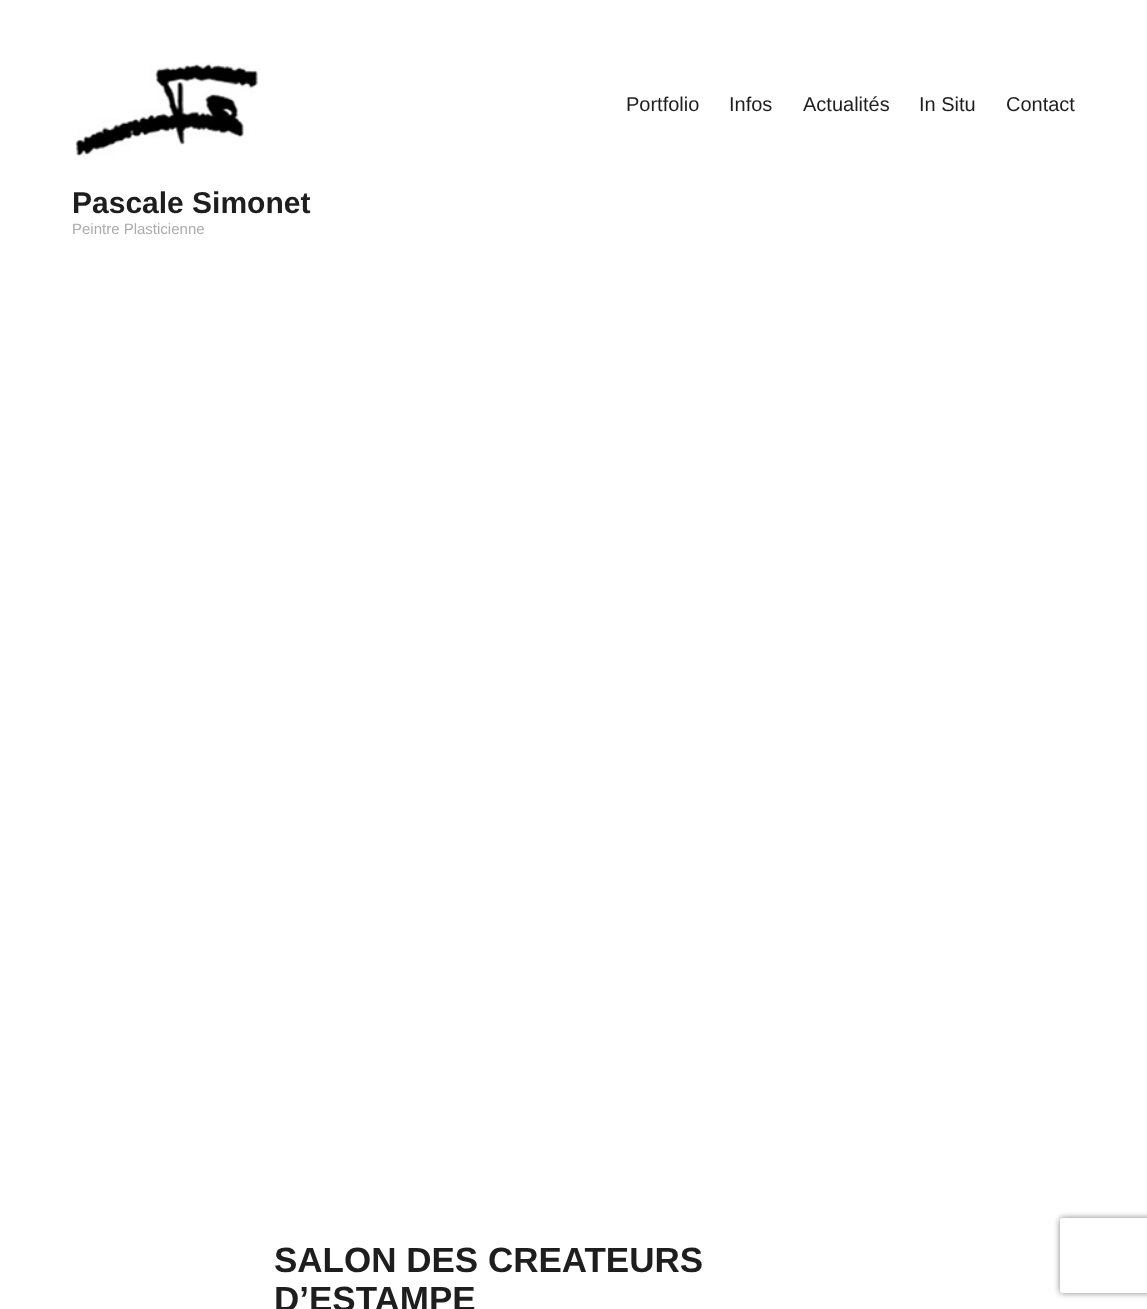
async function draw(canvas) {
	canvas.width = 1147;
	canvas.height = 1309;
	const c = canvas.getContext('2d');
	c.miterLimit = 4;
	c.fontKerning = 'normal';
	async function loadImage(src) {
		const img = new Image();
		img.src = src;
		await img.decode();
		return img;
	}

	c.fillStyle = '#fff';
	c.fillRect(0, 0, 1147, 1309);
	c.font = '20px Liberation Sans';
	c.fillStyle = '#1e1e1e';
	for (const [text, x, y] of [
		['Portfolio', 626, 111],
		['Infos', 729, 111],
		['Actualités', 803, 111],
		['In Situ', 919, 111],
		['Contact', 1006, 111],
	]) {
		c.fillText(text, x, y);
	}
	c.drawImage(await loadImage('img1.png'), 75, 63, 184, 94);
	c.font = 'bold 30px Liberation Sans';
	c.fillText('Pascale Simonet', 72, 213);
	c.font = '15px Liberation Sans';
	c.fillStyle = '#acacac';
	c.fillText('Peintre Plasticienne', 72, 234);
	c.font = 'bold 35px Liberation Sans';
	c.fillStyle = '#1e1e1e';
	c.fillText('SALON DES CREATEURS', 274, 1272);
	c.fillText('D’ESTAMPE', 274, 1311);
	c.save();
	c.beginPath();
	c.moveTo(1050, 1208);
	c.lineTo(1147, 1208);
	c.lineTo(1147, 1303);
	c.lineTo(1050, 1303);
	c.closePath();
	c.moveTo(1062.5, 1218);
	c.lineTo(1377.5, 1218);
	c.bezierCurveTo(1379, 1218, 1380, 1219, 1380, 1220.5);
	c.lineTo(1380, 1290.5);
	c.bezierCurveTo(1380, 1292, 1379, 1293, 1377.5, 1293);
	c.lineTo(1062.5, 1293);
	c.bezierCurveTo(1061, 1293, 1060, 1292, 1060, 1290.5);
	c.lineTo(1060, 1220.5);
	c.bezierCurveTo(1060, 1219, 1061, 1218, 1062.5, 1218);
	c.closePath();
	c.clip('evenodd');
	c.fillStyle = '#808080';
	c.filter = 'blur(3px)';
	c.beginPath();
	c.roundRect(1060, 1218, 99, 75, 2.5);
	c.fill();
	c.filter = 'none';
	c.restore();
}

draw(document.querySelector('canvas'));
